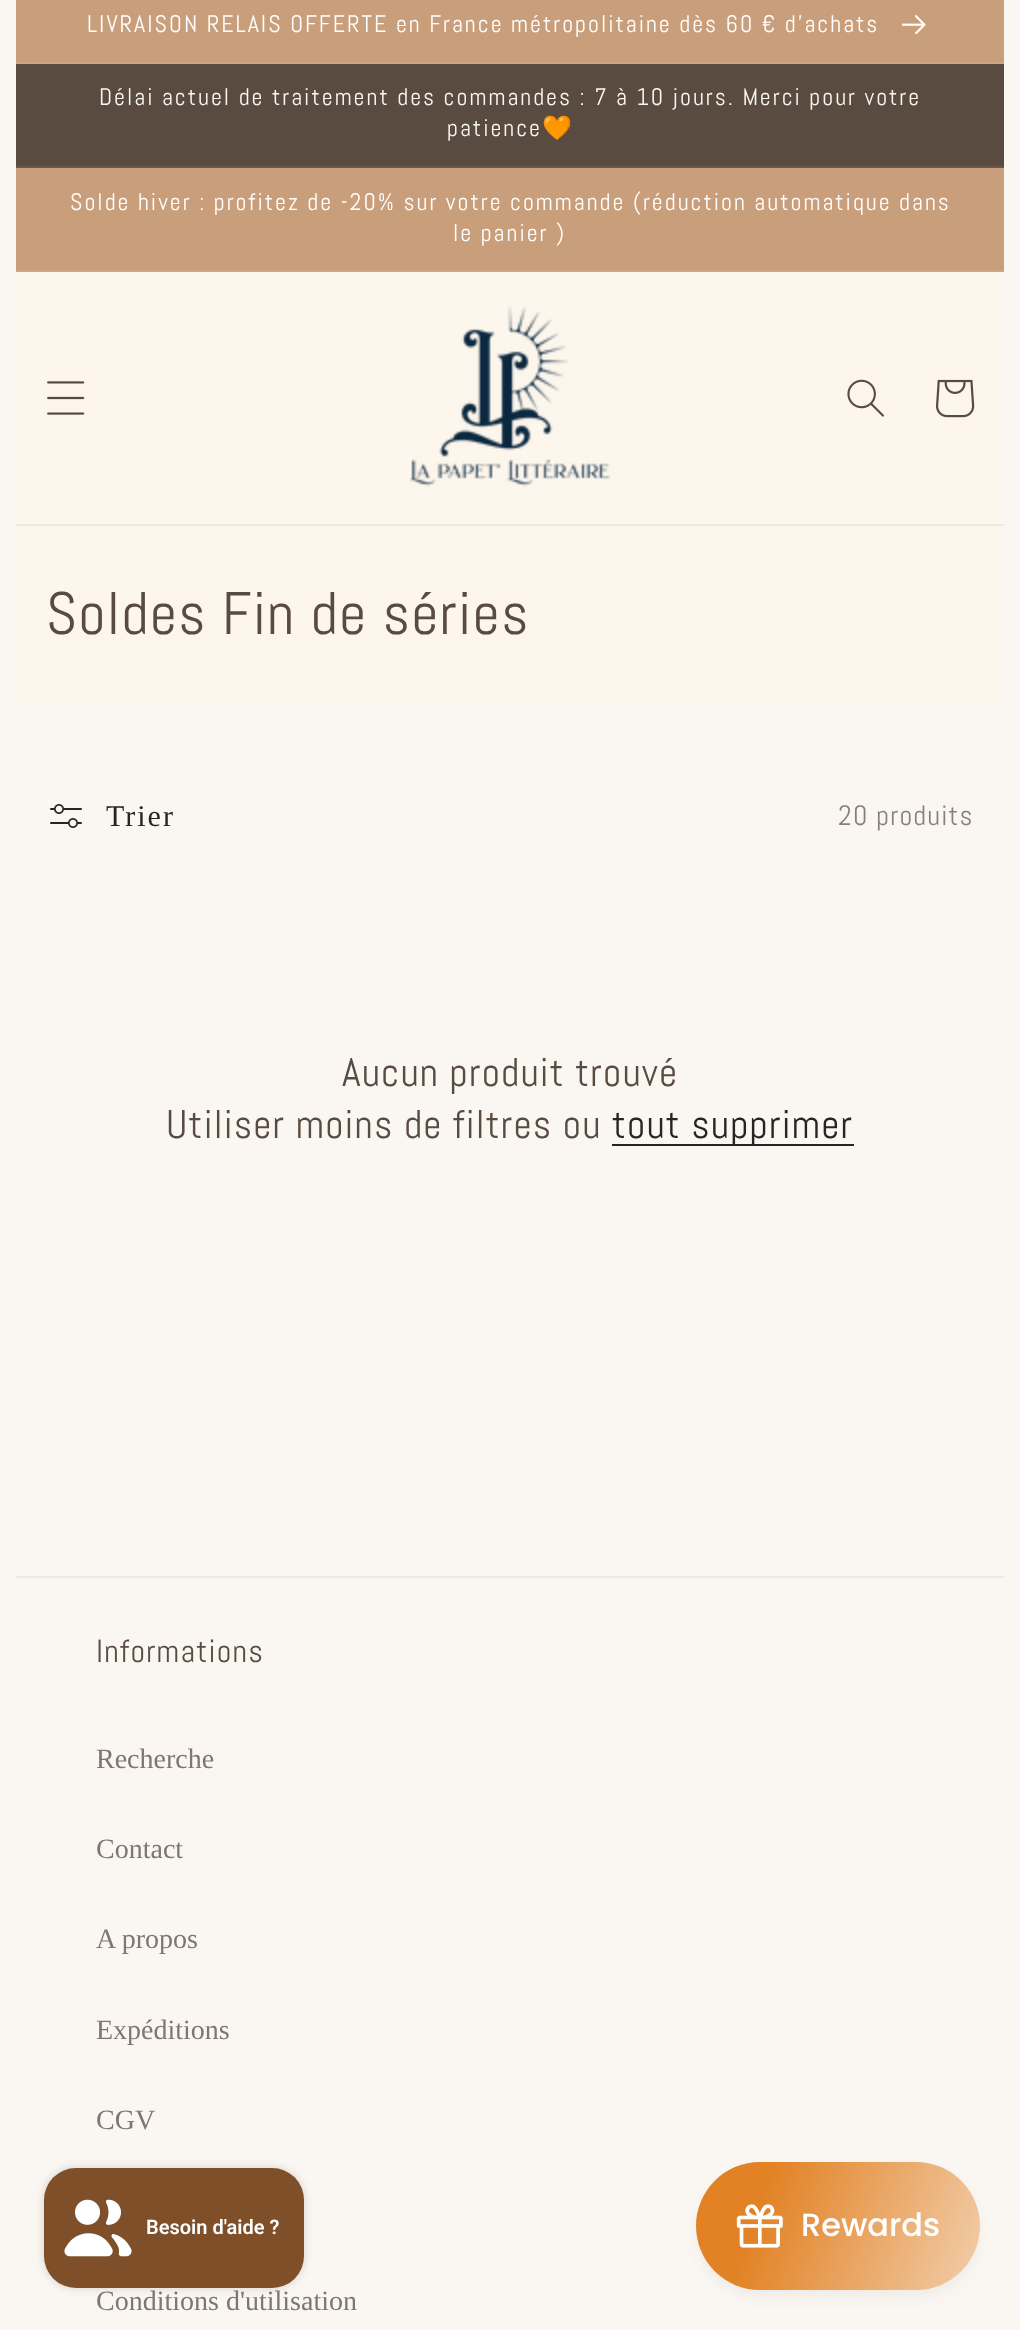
async function draw(canvas) {
	canvas.width = 1020;
	canvas.height = 2330;
	const c = canvas.getContext('2d');
	c.miterLimit = 4;
	c.fontKerning = 'normal';
	async function loadImage(src) {
		const img = new Image();
		img.src = src;
		await img.decode();
		return img;
	}
	let gradient;

	c.fillStyle = '#faf7f2';
	c.fillRect(0, 0, 1020, 2330);
	c.fillStyle = '#c99e7b';
	c.fillRect(16, 0, 988, 62);
	c.fillStyle = '#cda686';
	c.fillRect(16, 62, 988, 2);
	c.letterSpacing = '2px';
	c.font = '24px Abel';
	c.fillStyle = '#fff';
	c.fillText('LIVRAISON RELAIS OFFERTE en France métropolitaine dès 60 € d\'achats', 87, 32);
	c.drawImage(await loadImage('img1.png'), 902, 15, 24, 19);
	c.fillStyle = '#594b40';
	c.fillRect(16, 64, 988, 102);
	c.fillStyle = '#66594e';
	c.fillRect(16, 166, 988, 2);
	c.fillStyle = '#faf7f2';
	c.fillText('Délai actuel de traitement des commandes : 7 à 10 jours. Merci pour votre', 99, 105);
	c.fillText('patience', 447, 136);
	c.font = '24px Noto Color Emoji';
	c.fillText('🧡', 542, 136);
	c.fillStyle = '#c99e7b';
	c.fillRect(16, 168, 988, 102);
	c.fillStyle = '#cda686';
	c.fillRect(16, 270, 988, 2);
	c.font = '24px Abel';
	c.fillStyle = '#fff';
	c.fillText('Solde hiver : profitez de -20% sur votre commande (réduction automatique dans', 70, 210);
	c.fillText('le panier )', 453, 241);
	c.fillStyle = '#fcf6ec';
	c.fillRect(16, 272, 988, 252);
	c.fillStyle = '#efe8de';
	c.fillRect(16, 524, 988, 2);
	c.drawImage(await loadImage('img2.png'), 47, 381, 38, 34);
	c.drawImage(await loadImage('img3.png'), 410, 306, 200, 181);
	c.drawImage(await loadImage('img4.png'), 847, 379, 37, 38);
	c.drawImage(await loadImage('img5.png'), 936, 379, 39, 39);
	c.fillStyle = '#fcf6ec';
	c.fillRect(16, 526, 988, 178);
	c.letterSpacing = '1.2px';
	c.font = '60px Abel';
	c.fillStyle = '#594b40';
	c.fillText('Soldes Fin de séries', 46, 634);
	c.drawImage(await loadImage('img6.png'), 50, 804, 32, 24);
	c.letterSpacing = '2px';
	c.font = '30px Liberation Serif';
	c.fillStyle = '#252524';
	c.fillText('Trier', 106, 826);
	c.letterSpacing = '1.2px';
	c.font = '28px Abel';
	c.fillStyle = '#897f75';
	c.fillText('20 produits', 838, 825);
	c.font = '40px Abel';
	c.fillStyle = '#594b40';
	c.fillText('Aucun produit trouvé', 342, 1086);
	c.fillText('Utiliser moins de filtres ou', 166, 1138);
	c.fillStyle = '#262524';
	c.fillRect(612, 1144, 242, 2);
	c.fillStyle = '#252524';
	c.fillText('tout supprimer', 612, 1138);
	c.fillStyle = '#ede9e4';
	c.fillRect(16, 1576, 988, 2);
	c.font = '32px Abel';
	c.fillStyle = '#594b40';
	c.fillText('Informations', 96, 1662);
	c.letterSpacing = '0px';
	c.font = '28px Liberation Serif';
	c.fillStyle = '#81766d';
	for (const [text, x, y] of [
		['Recherche', 96, 1768],
		['Contact', 96, 1858],
		['A propos', 96, 1948],
		['Expéditions', 96, 2039],
		['CGV', 96, 2129],
		['Conditions d\'utilisation', 96, 2310],
	]) {
		c.fillText(text, x, y);
	}
	c.fillStyle = '#44444414';
	c.filter = 'blur(8px)';
	c.beginPath();
	c.roundRect(700, 2174, 276, 120, 60);
	c.fill();
	c.filter = 'none';
	gradient = c.createLinearGradient(692, 2174, 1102, 2320);
	gradient.addColorStop(0.17, '#e28225');
	gradient.addColorStop(1, '#faf7f2');
	c.fillStyle = gradient;
	c.beginPath();
	c.roundRect(696, 2162, 284, 128, 64);
	c.fill();
	c.drawImage(await loadImage('img7.png'), 736, 2204, 47, 44);
	c.font = '500 32px Poppins';
	c.fillStyle = '#fff';
	c.fillText('Rewards', 801, 2236);
	c.fillStyle = '#00000026';
	c.filter = 'blur(5px)';
	c.beginPath();
	c.roundRect(44, 2168, 260, 120, 32);
	c.fill();
	c.filter = 'none';
	c.fillStyle = '#7e4f28';
	c.beginPath();
	c.roundRect(44, 2168, 260, 120, 32);
	c.fill();
	c.drawImage(await loadImage('img8.png'), 64, 2199, 68, 58);
	c.font = '600 20px Roboto';
	c.fillStyle = '#fff';
	c.fillText('Besoin d\'aide ?', 146, 2234);
}

draw(document.querySelector('canvas'));
